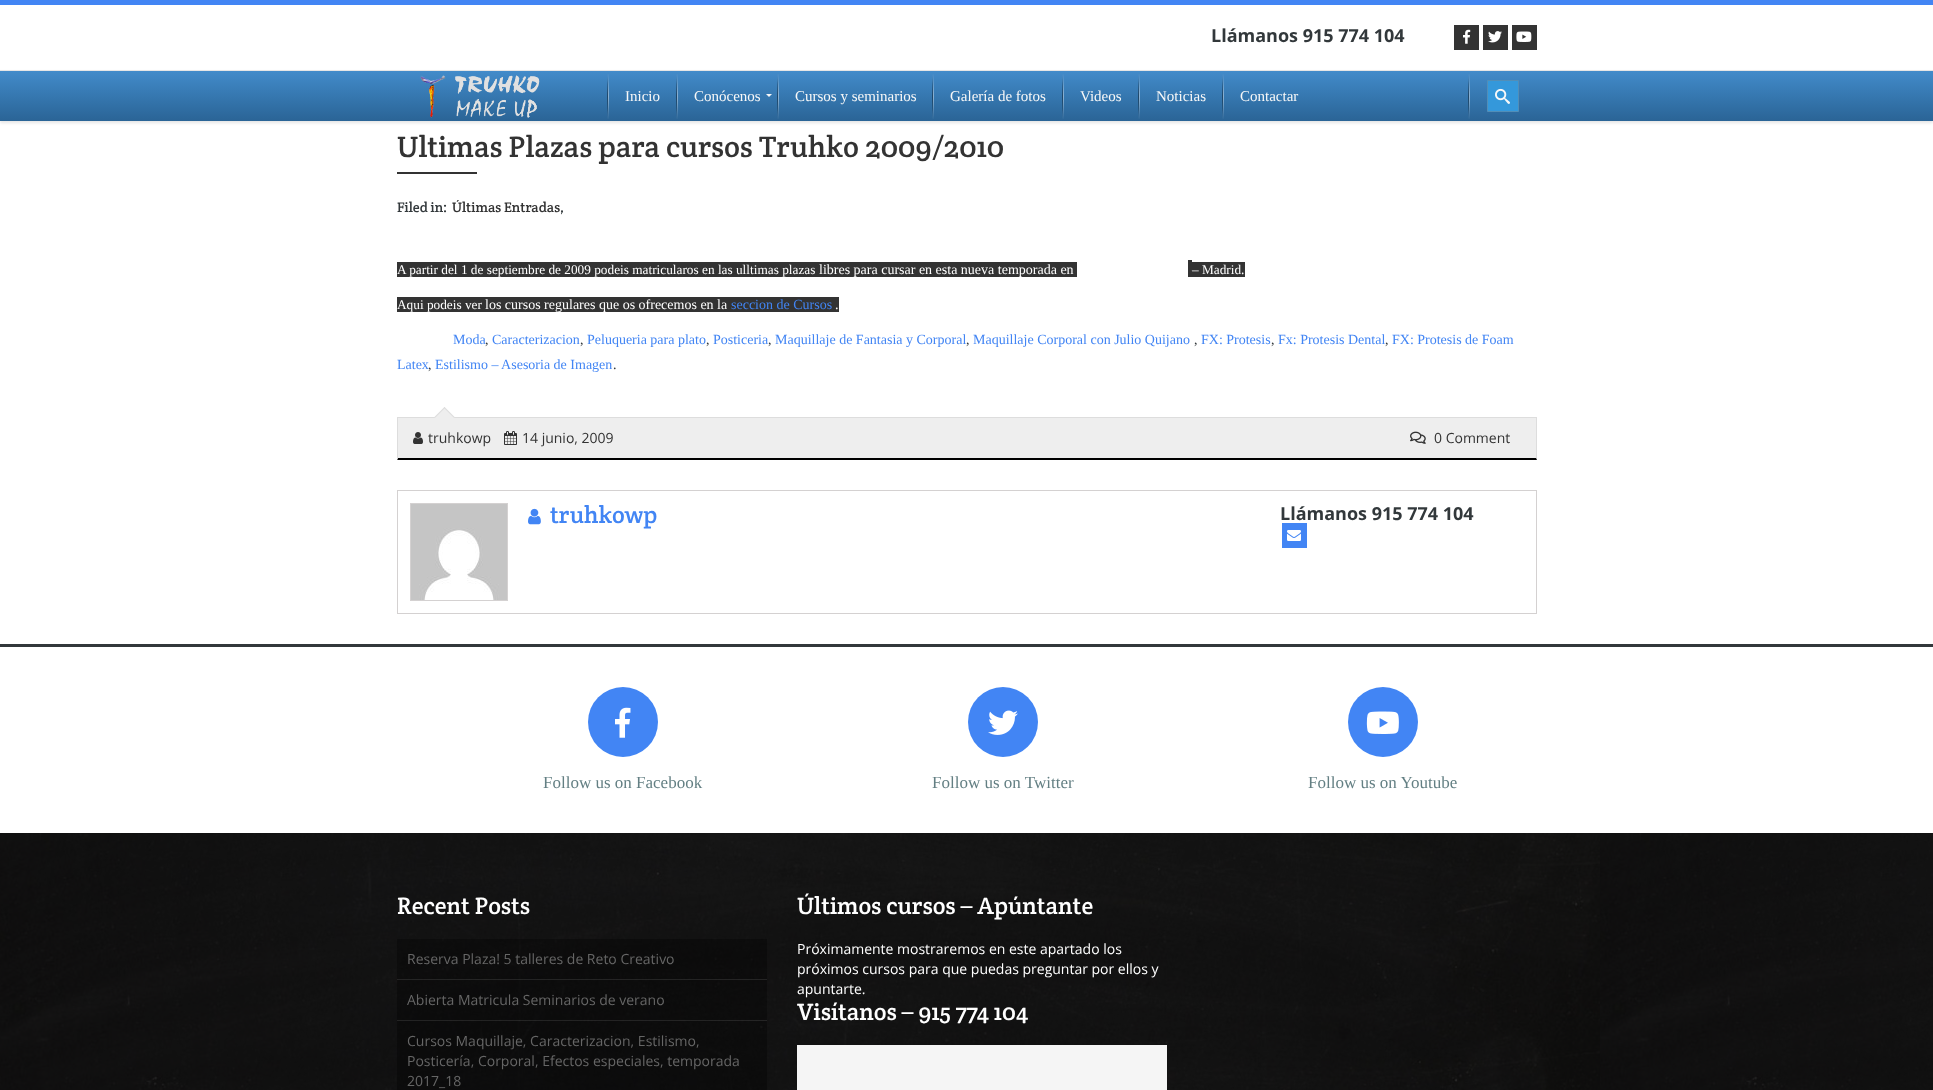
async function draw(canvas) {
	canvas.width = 1933;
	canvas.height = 1090;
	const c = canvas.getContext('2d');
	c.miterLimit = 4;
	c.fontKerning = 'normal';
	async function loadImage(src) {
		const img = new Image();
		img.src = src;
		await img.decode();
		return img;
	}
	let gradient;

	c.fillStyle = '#fff';
	c.fillRect(0, 0, 1933, 1090);
	c.fillStyle = '#4285f4';
	c.fillRect(0, 0, 1933, 5);
	c.font = 'bold 18px Open Sans';
	c.fillStyle = '#32383b';
	c.fillText('Llámanos 915 774 104', 1211, 42);
	c.fillStyle = '#333';
	c.fillRect(1454, 25, 25, 25);
	c.drawImage(await loadImage('img1.png'), 1463, 29, 8, 15);
	c.fillRect(1483, 25, 25, 25);
	c.drawImage(await loadImage('img2.png'), 1488, 31, 14, 12);
	c.fillRect(1512, 25, 25, 25);
	c.drawImage(await loadImage('img3.png'), 1516, 31, 16, 11);
	c.fillStyle = '#0000001a';
	c.filter = 'blur(1.5px)';
	c.beginPath();
	c.rect(0, 72, 1933, 51);
	c.fill();
	c.filter = 'none';
	c.fillStyle = '#e6e6e6';
	c.fillRect(0, 70, 1933, 1);
	gradient = c.createLinearGradient(967, 71, 967, 121);
	gradient.addColorStop(0, '#428bca');
	gradient.addColorStop(1, '#2a6496');
	c.fillStyle = gradient;
	c.fillRect(0, 71, 1933, 50);
	c.drawImage(await loadImage('img4.png'), 420, 75, 120, 43);
	c.drawImage(await loadImage('img5.png'), 607, 74, 2, 45);
	c.font = '15px Liberation Serif';
	c.fillStyle = '#f8f8f8';
	c.fillText('Inicio', 625, 101);
	c.drawImage(await loadImage('img5.png'), 676, 74, 2, 45);
	c.fillText('Conócenos', 694, 101);
	c.beginPath();
	c.moveTo(766, 94);
	c.lineTo(769, 97);
	c.lineTo(772, 94);
	c.closePath();
	c.fill();
	c.drawImage(await loadImage('img5.png'), 777, 74, 2, 45);
	c.fillText('Cursos y seminarios', 795, 101);
	c.drawImage(await loadImage('img5.png'), 932, 74, 2, 45);
	c.fillText('Galería de fotos', 950, 101);
	c.drawImage(await loadImage('img5.png'), 1062, 74, 2, 45);
	c.fillText('Videos', 1080, 101);
	c.drawImage(await loadImage('img5.png'), 1138, 74, 2, 45);
	c.fillText('Noticias', 1156, 101);
	c.drawImage(await loadImage('img5.png'), 1222, 74, 2, 45);
	c.fillText('Contactar', 1240, 101);
	c.drawImage(await loadImage('img5.png'), 1468, 74, 2, 45);
	c.fillStyle = '#3498db';
	c.beginPath();
	c.rect(1487.5, 80.5, 31, 31);
	c.fill();
	c.strokeStyle = '#528eb7';
	c.stroke();
	c.drawImage(await loadImage('img6.png'), 1495, 88, 15, 16);
	c.font = '30px Crete Round';
	c.fillStyle = '#333';
	c.fillText('Ultimas Plazas para cursos Truhko 2009/2010', 397, 157);
	c.fillRect(397, 172, 80, 2);
	c.font = '14px Crete Round';
	c.fillStyle = '#32383b';
	c.fillText('Filed in:', 397, 212);
	c.fillStyle = '#333';
	c.fillText('Últimas Entradas', 452, 212);
	c.fillStyle = '#32383b';
	c.fillText(',', 560, 212);
	c.fillStyle = '#333';
	c.fillRect(397, 262, 680, 15);
	c.font = '13.3px Liberation Serif';
	c.fillStyle = '#fff';
	c.fillText('A partir del 1 de septiembre de 2009 podeis matricularos en las ulltimas plazas', 397, 274);
	c.font = '14px Liberation Serif';
	c.fillText('libres para cursar en esta nueva temporada en', 819, 274);
	c.fillStyle = '#333';
	c.fillRect(1188, 260, 4, 17);
	c.fillRect(1192, 262, 53, 15);
	c.font = '13.3px Liberation Serif';
	c.fillStyle = '#fff';
	c.fillText('– Madrid.', 1192, 274);
	c.fillStyle = '#333';
	c.fillRect(397, 297, 442, 15);
	c.fillStyle = '#fff';
	c.fillText('Aqui podeis ver', 397, 309);
	c.font = '14px Liberation Serif';
	c.fillText('los cursos regulares que os ofrecemos en la', 485, 309);
	c.fillStyle = '#4285f4';
	c.fillText('seccion de Cursos', 731, 309);
	c.fillStyle = '#fff';
	c.fillText('.', 835, 309);
	c.fillStyle = '#4285f4';
	c.fillText('Moda', 453, 344);
	c.fillStyle = '#32383b';
	c.fillText(',', 485, 344);
	c.fillStyle = '#4285f4';
	c.fillText('Caracterizacion', 492, 344);
	c.fillStyle = '#32383b';
	c.fillText(',', 580, 344);
	c.fillStyle = '#4285f4';
	c.fillText('Peluqueria para plato', 587, 344);
	c.fillStyle = '#32383b';
	c.fillText(',', 706, 344);
	c.fillStyle = '#4285f4';
	c.fillText('Posticeria', 713, 344);
	c.fillStyle = '#32383b';
	c.fillText(',', 768, 344);
	c.fillStyle = '#4285f4';
	c.fillText('Maquillaje de Fantasia y Corporal', 775, 344);
	c.fillStyle = '#32383b';
	c.fillText(',', 966, 344);
	c.fillStyle = '#4285f4';
	c.fillText('Maquillaje Corporal con Julio Quijano', 973, 344);
	c.fillStyle = '#32383b';
	c.fillText(',', 1194, 344);
	c.fillStyle = '#4285f4';
	c.fillText('FX: Protesis', 1201, 344);
	c.fillStyle = '#32383b';
	c.fillText(',', 1271, 344);
	c.fillStyle = '#4285f4';
	c.fillText('Fx: Protesis Dental', 1278, 344);
	c.fillStyle = '#32383b';
	c.fillText(',', 1385, 344);
	c.fillStyle = '#4285f4';
	c.fillText('FX: Protesis de Foam', 1392, 344);
	c.fillText('Latex', 397, 369);
	c.fillStyle = '#32383b';
	c.fillText(',', 428, 369);
	c.fillStyle = '#4285f4';
	c.fillText('Estilismo – Asesoria de Imagen', 435, 369);
	c.fillStyle = '#32383b';
	c.fillText('.', 613, 369);
	c.fillStyle = '#eee';
	c.fillRect(398, 418, 1138, 40);
	c.fillStyle = '#ddd';
	c.fillRect(397, 417, 1140, 1);
	c.beginPath();
	c.moveTo(1537, 417);
	c.lineTo(1537, 460);
	c.lineTo(1536, 458);
	c.lineTo(1536, 418);
	c.closePath();
	c.fill();
	c.fillStyle = '#000';
	c.beginPath();
	c.moveTo(1537, 460);
	c.lineTo(397, 460);
	c.lineTo(398, 458);
	c.lineTo(1536, 458);
	c.closePath();
	c.fill();
	c.fillStyle = '#ddd';
	c.beginPath();
	c.moveTo(397, 460);
	c.lineTo(397, 417);
	c.lineTo(398, 418);
	c.lineTo(398, 458);
	c.closePath();
	c.fill();
	c.fillStyle = '#eee';
	c.beginPath();
	c.moveTo(444.5, 407);
	c.lineTo(454.5, 417);
	c.lineTo(444.5, 427);
	c.lineTo(434.5, 417);
	c.closePath();
	c.fill();
	c.fillStyle = '#ddd';
	c.beginPath();
	c.moveTo(444.5, 407);
	c.lineTo(454.5, 417);
	c.lineTo(453.5, 417.5);
	c.lineTo(444, 408);
	c.closePath();
	c.fill();
	c.beginPath();
	c.moveTo(444.5, 407);
	c.lineTo(445, 408);
	c.lineTo(435.5, 417.5);
	c.lineTo(434.5, 417);
	c.closePath();
	c.fill();
	c.drawImage(await loadImage('img7.png'), 413, 432, 10, 12);
	c.font = '14px Open Sans';
	c.fillStyle = '#333';
	c.fillText('truhkowp', 428, 443);
	c.drawImage(await loadImage('img8.png'), 504, 431, 13, 14);
	c.fillText('14 junio, 2009', 522, 443);
	c.drawImage(await loadImage('img9.png'), 1410, 431, 16, 13);
	c.fillText('0 Comment', 1434, 443);
	c.strokeStyle = '#d4d1d1';
	c.strokeRect(397.5, 490.5, 1139, 123);
	c.strokeRect(410.5, 503.5, 97, 97);
	c.drawImage(await loadImage('img10.png'), 411, 504, 96, 96);
	c.drawImage(await loadImage('img11.png'), 528, 508, 13, 17);
	c.font = '24px Crete Round';
	c.fillStyle = '#4285f4';
	c.fillText('truhkowp', 550, 523);
	c.font = 'bold 18px Open Sans';
	c.fillStyle = '#32383b';
	c.fillText('Llámanos 915 774 104', 1280, 520);
	c.fillStyle = '#4285f4';
	c.fillRect(1282, 523, 25, 25);
	c.drawImage(await loadImage('img12.png'), 1287, 530, 14, 11);
	c.fillStyle = '#32383b';
	c.fillRect(0, 644, 1933, 3);
	c.fillStyle = '#4285f4';
	c.beginPath();
	c.arc(623, 722, 35, 0, 2 * Math.PI);
	c.fill();
	c.drawImage(await loadImage('img13.png'), 615, 707, 16, 31);
	c.font = '17px Liberation Serif';
	c.fillStyle = '#637f83';
	c.fillText('Follow us on Facebook', 543, 788);
	c.fillStyle = '#4285f4';
	c.beginPath();
	c.arc(1003, 722, 35, 0, 2 * Math.PI);
	c.fill();
	c.drawImage(await loadImage('img14.png'), 988, 710, 30, 25);
	c.fillStyle = '#637f83';
	c.fillText('Follow us on Twitter', 932, 788);
	c.fillStyle = '#4285f4';
	c.beginPath();
	c.arc(1383, 722, 35, 0, 2 * Math.PI);
	c.fill();
	c.drawImage(await loadImage('img15.png'), 1366, 711, 33, 23);
	c.fillStyle = '#637f83';
	c.fillText('Follow us on Youtube', 1308, 788);
	c.drawImage(await loadImage('img16.png'), 0, 833, 1933, 257);
	c.font = '24px Crete Round';
	c.fillStyle = '#fff';
	c.fillText('Recent Posts', 397, 914);
	c.fillStyle = '#0000004d';
	c.fillRect(397, 939, 370, 40);
	c.font = '14px Open Sans';
	c.fillStyle = '#666';
	c.fillText('Reserva Plaza! 5 talleres de Reto Creativo', 407, 964);
	c.fillStyle = '#0000004d';
	c.fillRect(397, 979, 370, 41);
	c.fillStyle = '#ffffff1a';
	c.fillRect(397, 979, 370, 1);
	c.fillStyle = '#666';
	c.fillText('Abierta Matricula Seminarios de verano', 407, 1005);
	c.fillStyle = '#0000004d';
	c.fillRect(397, 1020, 370, 70);
	c.fillStyle = '#ffffff1a';
	c.fillRect(397, 1020, 370, 1);
	c.fillStyle = '#666';
	for (const [text, x, y] of [
		['Cursos Maquillaje, Caracterizacion, Estilismo,', 407, 1046],
		['Posticería, Corporal, Efectos especiales, temporada', 407, 1066],
		['2017_18', 407, 1086],
	]) {
		c.fillText(text, x, y);
	}
	c.font = '24px Crete Round';
	c.fillStyle = '#fff';
	c.fillText('Últimos cursos – Apúntante', 797, 914);
	c.font = '14px Open Sans';
	for (const [text, x, y] of [
		['Próximamente mostraremos en este apartado los', 797, 954],
		['próximos cursos para que puedas preguntar por ellos y', 797, 974],
		['apuntarte.', 797, 994],
	]) {
		c.fillText(text, x, y);
	}
	c.font = '24px Crete Round';
	c.fillText('Visítanos – 915 774 104', 797, 1020);
	c.fillStyle = '#f5f5f5';
	c.fillRect(797, 1045, 370, 45);
}

draw(document.querySelector('canvas'));
